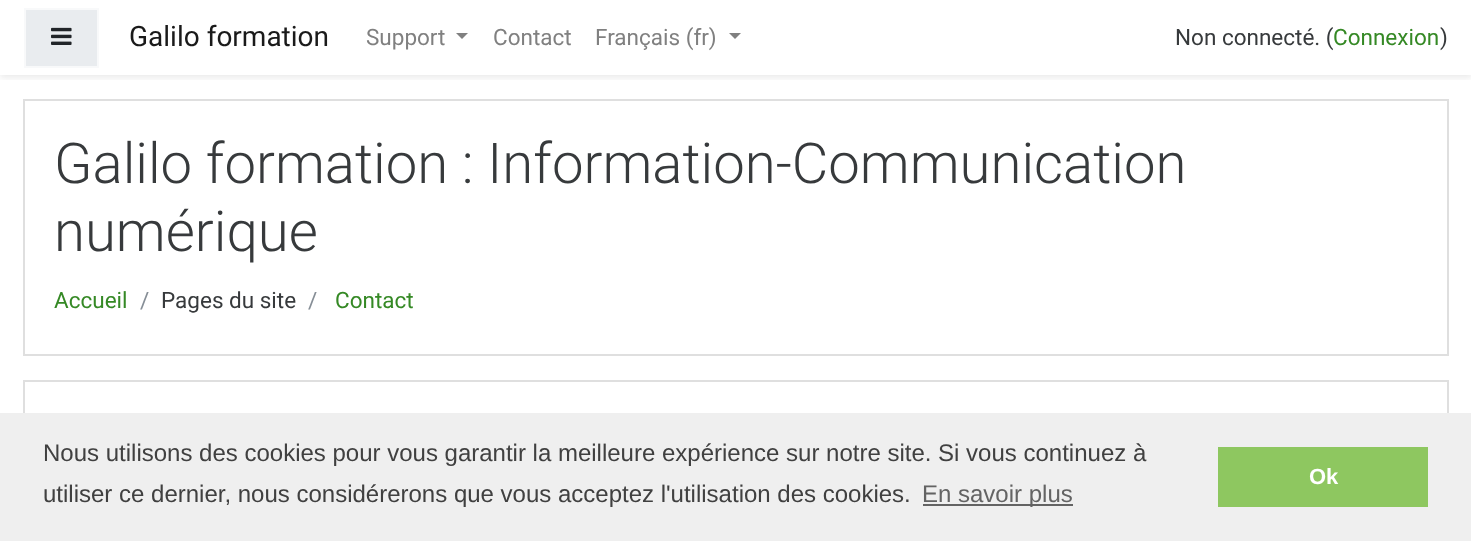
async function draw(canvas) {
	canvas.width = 1471;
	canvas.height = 541;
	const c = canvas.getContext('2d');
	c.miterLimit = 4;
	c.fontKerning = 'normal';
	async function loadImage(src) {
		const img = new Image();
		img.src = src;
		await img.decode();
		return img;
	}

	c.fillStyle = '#fff';
	c.fillRect(0, 0, 1471, 541);
	c.save();
	c.beginPath();
	c.rect(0, 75, 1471, 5);
	c.clip();
	c.fillStyle = '#00000014';
	c.filter = 'blur(3px)';
	c.beginPath();
	c.rect(0, 3, 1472, 75);
	c.fill();
	c.filter = 'none';
	c.restore();
	c.fillStyle = '#e9ecef';
	c.beginPath();
	c.rect(25, 9, 73, 58);
	c.fill();
	c.strokeStyle = '#f8f9fa';
	c.lineWidth = 2;
	c.stroke();
	c.drawImage(await loadImage('img1.png'), 51, 27, 21, 18);
	c.font = '28px Roboto';
	c.fillStyle = '#1a1a1a';
	c.fillText('Galilo formation', 129, 46);
	c.font = '22.5px Roboto';
	c.fillStyle = '#808080';
	c.fillText('Support', 366, 45);
	c.beginPath();
	c.moveTo(456, 33);
	c.lineTo(468, 33);
	c.lineTo(462, 39);
	c.closePath();
	c.fill();
	c.fillText('Contact', 493, 45);
	c.fillText('Français (fr)', 595, 45);
	c.beginPath();
	c.moveTo(729, 33);
	c.lineTo(741, 33);
	c.lineTo(735, 39);
	c.closePath();
	c.fill();
	c.fillStyle = '#373a3c';
	c.fillText('Non connecté. (', 1175, 45);
	c.fillStyle = '#358925';
	c.fillText('Connexion', 1333, 45);
	c.fillStyle = '#373a3c';
	c.fillText(')', 1440, 45);
	c.strokeStyle = '#dfdfdf';
	c.strokeRect(24, 100, 1424, 255);
	c.font = '300 56.25px Roboto';
	c.fillText('Galilo formation : Information-Communication', 54, 183);
	c.fillText('numérique', 54, 251);
	c.font = '22.5px Roboto';
	c.fillStyle = '#358925';
	c.fillText('Accueil', 54, 308);
	c.fillStyle = '#868e96';
	c.fillText('/', 140, 308);
	c.fillStyle = '#373a3c';
	c.fillText('Pages du site', 161, 308);
	c.fillStyle = '#868e96';
	c.fillText('/', 308, 308);
	c.fillStyle = '#358925';
	c.fillText('Contact', 335, 308);
	c.strokeRect(24, 381, 1424, 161);
	c.fillStyle = '#efefef';
	c.fillRect(0, 413, 1471, 128);
	c.font = '24px Liberation Sans';
	c.fillStyle = '#404040';
	c.fillText('Nous utilisons des cookies pour vous garantir la meilleure expérience sur notre site. Si vous continuez à', 43, 461);
	c.fillText('utiliser ce dernier, nous considérerons que vous acceptez l\'utilisation des cookies.', 43, 502);
	c.fillStyle = '#636363';
	c.fillRect(923, 504, 150, 2);
	c.fillText('En savoir plus', 922, 502);
	c.fillStyle = '#8ec760';
	c.fillRect(1218, 447, 210, 60);
	c.font = 'bold 22px Liberation Sans';
	c.fillStyle = '#fff';
	c.fillText('Ok', 1309, 484);
}

draw(document.querySelector('canvas'));
